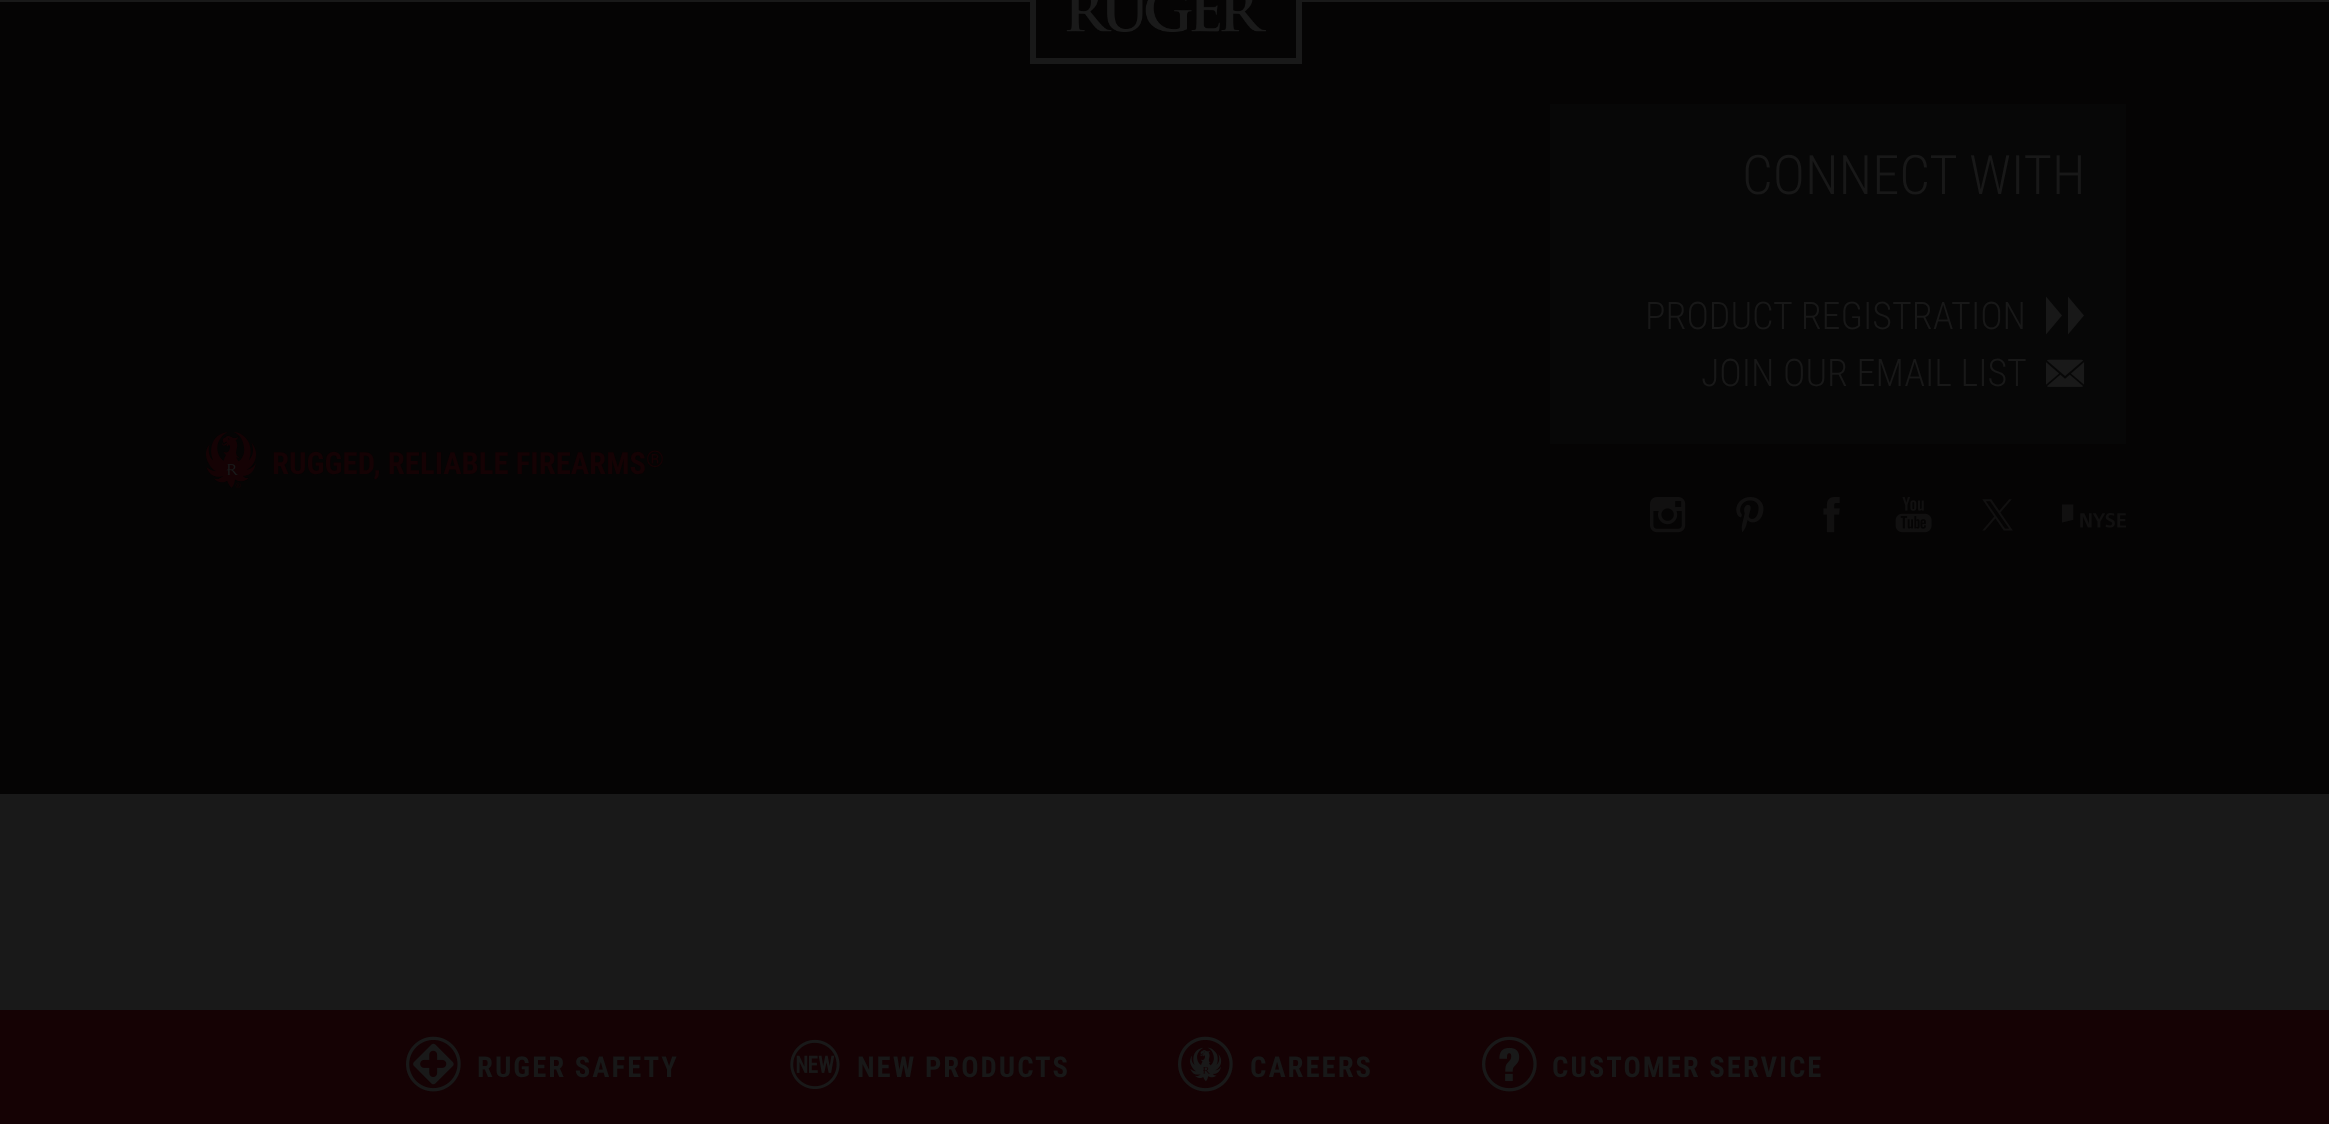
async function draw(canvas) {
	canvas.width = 2329;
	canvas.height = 1124;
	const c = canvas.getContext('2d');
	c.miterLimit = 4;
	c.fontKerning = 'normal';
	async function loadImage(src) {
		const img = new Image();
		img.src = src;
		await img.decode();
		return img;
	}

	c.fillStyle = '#191919';
	c.fillRect(0, 0, 2329, 1124);
	c.fillStyle = '#050404';
	c.fillRect(0, 2, 2329, 792);
	c.fillRect(1036, 0, 260, 2);
	c.strokeStyle = '#191919';
	c.lineWidth = 6;
	c.strokeRect(1033, -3, 266, 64);
	c.drawImage(await loadImage('img1.png'), 1066, 0, 200, 32);
	c.fillStyle = '#070707';
	c.fillRect(1550, 104, 576, 340);
	c.font = '300 54.5px Roboto Condensed';
	c.fillStyle = '#181818';
	c.fillText('CONNECT WITH', 1742, 194);
	c.font = '300 38px Roboto Condensed';
	c.fillText('PRODUCT REGISTRATION', 1645, 329);
	c.beginPath();
	c.moveTo(2068, 296.5);
	c.lineTo(2068, 334.5);
	c.lineTo(2084, 315.5);
	c.closePath();
	c.moveTo(2046, 296.5);
	c.lineTo(2046, 334.5);
	c.lineTo(2062, 315.5);
	c.closePath();
	c.fill();
	c.fillText('JOIN OUR EMAIL LIST', 1701, 386);
	c.drawImage(await loadImage('img2.png'), 2046, 359, 39, 28);
	c.drawImage(await loadImage('img3.png'), 1650, 497, 36, 36);
	c.drawImage(await loadImage('img4.png'), 1736, 497, 28, 36);
	c.drawImage(await loadImage('img5.png'), 1823, 497, 17, 36);
	c.drawImage(await loadImage('img6.png'), 1895, 497, 37, 36);
	c.drawImage(await loadImage('img7.png'), 1982, 499, 31, 32);
	c.drawImage(await loadImage('img8.png'), 2062, 504, 64, 24);
	c.drawImage(await loadImage('img9.png'), 206, 432, 50, 56);
	c.font = 'bold 30.75px Roboto Condensed';
	c.fillStyle = '#150204';
	c.fillText('RUGGED, RELIABLE FIREARMS', 272, 474);
	c.font = 'bold 23px Roboto Condensed';
	c.fillText('®', 646, 467);
	c.fillRect(0, 1010, 2329, 114);
	c.drawImage(await loadImage('img10.png'), 406, 1036, 55, 56);
	c.letterSpacing = '2px';
	c.font = 'bold 28.75px Roboto Condensed';
	c.fillStyle = '#181818';
	c.fillText('RUGER SAFETY', 477, 1077);
	c.drawImage(await loadImage('img11.png'), 790, 1039, 50, 51);
	c.fillText('NEW PRODUCTS', 857, 1077);
	c.drawImage(await loadImage('img12.png'), 1178, 1036, 55, 56);
	c.fillText('CAREERS', 1250, 1077);
	c.drawImage(await loadImage('img13.png'), 1482, 1036, 55, 56);
	c.fillText('CUSTOMER SERVICE', 1552, 1077);
}

draw(document.querySelector('canvas'));
